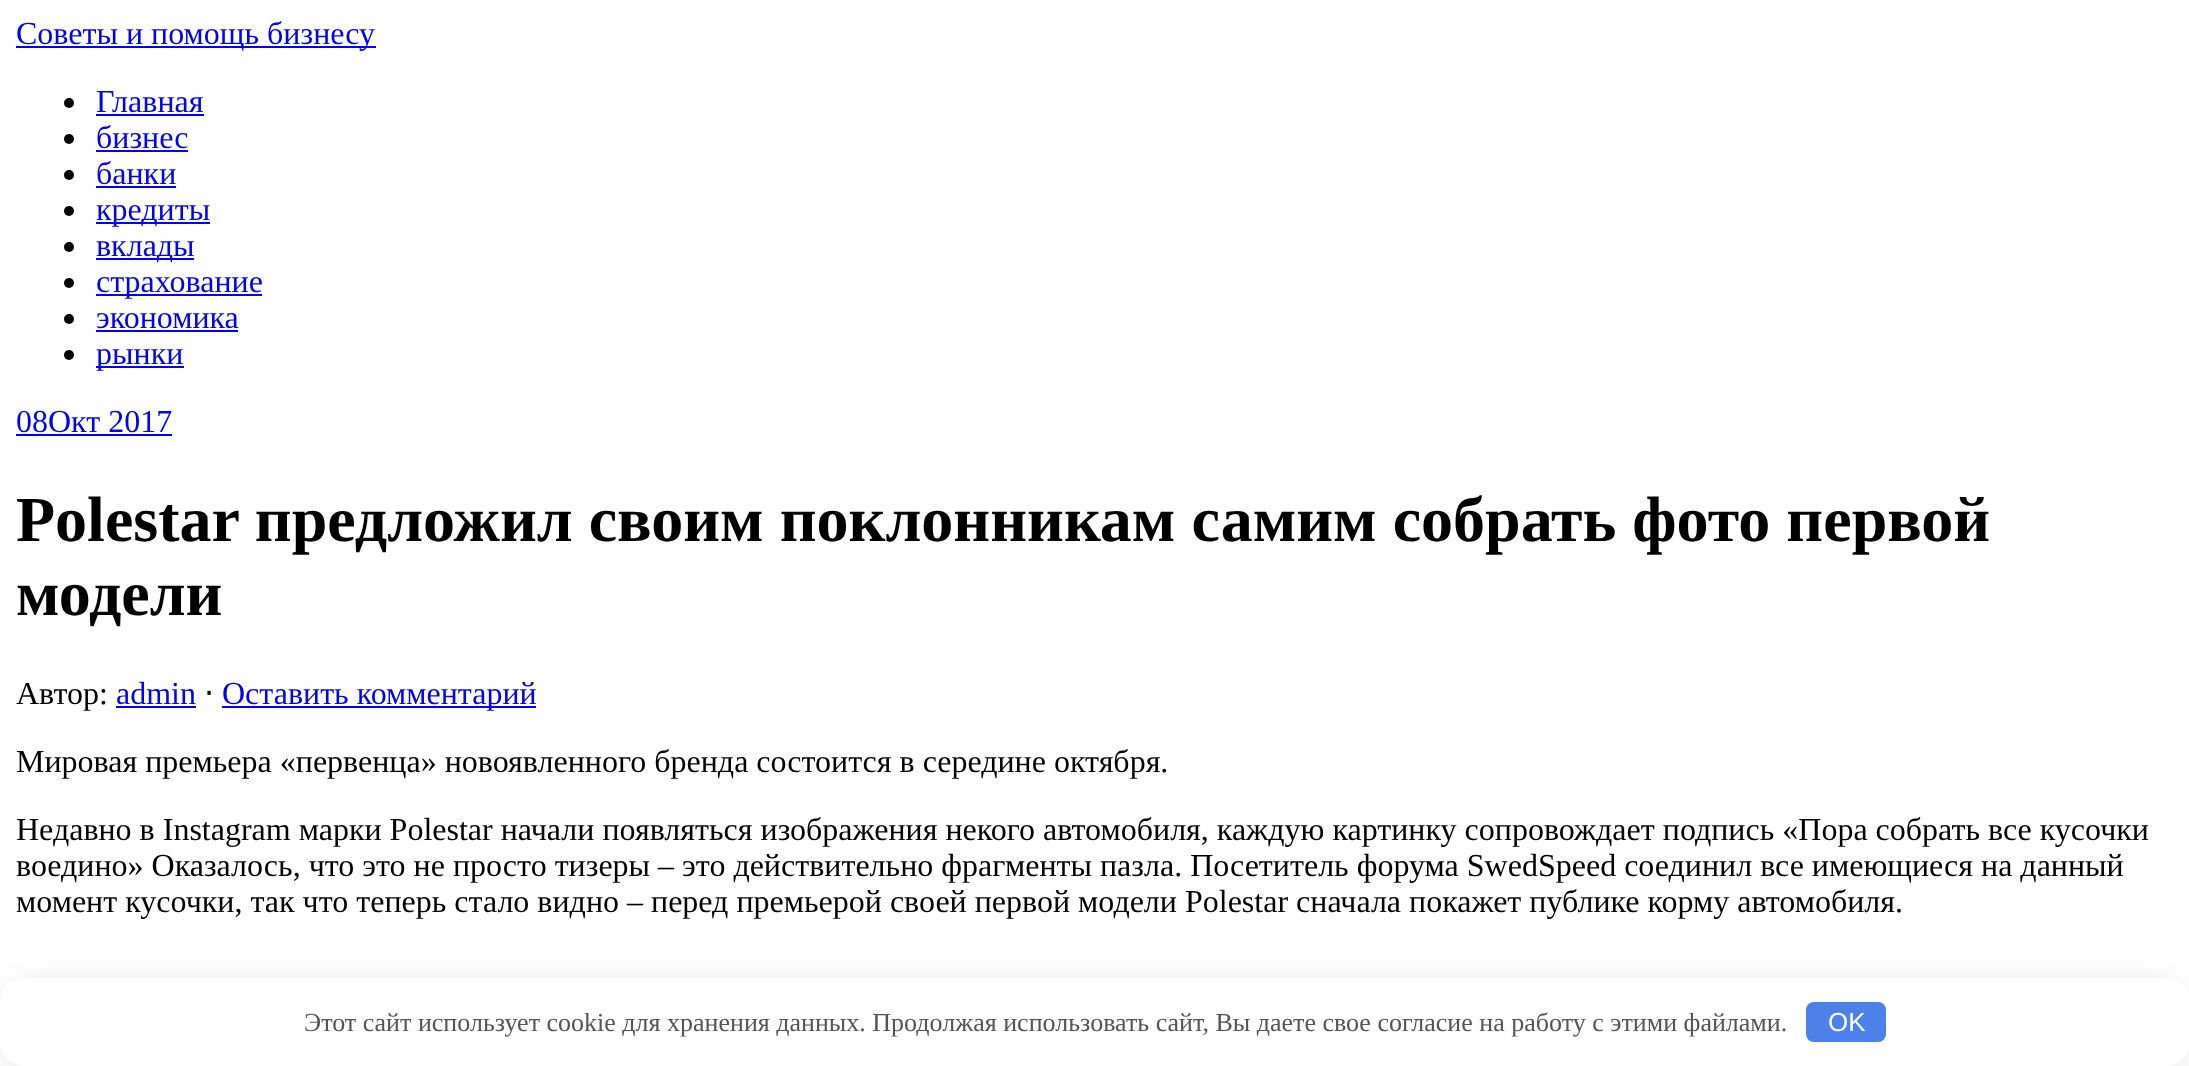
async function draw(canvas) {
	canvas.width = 2189;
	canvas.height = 1066;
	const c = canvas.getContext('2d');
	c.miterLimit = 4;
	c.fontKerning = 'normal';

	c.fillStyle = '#fff';
	c.fillRect(0, 0, 2189, 1066);
	c.fillStyle = '#00e';
	c.fillRect(16, 46, 360, 2);
	c.font = '32px Liberation Serif';
	c.fillText('Советы и помощь бизнесу', 16, 44);
	c.fillStyle = '#000';
	c.beginPath();
	c.arc(69, 103, 5, 0, 2 * Math.PI);
	c.fill();
	c.fillStyle = '#00e';
	c.fillText('Главная', 96, 112);
	c.fillRect(96, 114, 108, 2);
	c.fillStyle = '#000';
	c.beginPath();
	c.arc(69, 139, 5, 0, 2 * Math.PI);
	c.fill();
	c.fillStyle = '#00e';
	c.fillText('бизнес', 96, 148);
	c.fillRect(96, 150, 92, 2);
	c.fillStyle = '#000';
	c.beginPath();
	c.arc(69, 175, 5, 0, 2 * Math.PI);
	c.fill();
	c.fillStyle = '#00e';
	c.fillText('банки', 96, 184);
	c.fillRect(96, 186, 80, 2);
	c.fillStyle = '#000';
	c.beginPath();
	c.arc(69, 211, 5, 0, 2 * Math.PI);
	c.fill();
	c.fillStyle = '#00e';
	c.fillRect(96, 222, 114, 2);
	c.fillText('кредиты', 96, 220);
	c.fillStyle = '#000';
	c.beginPath();
	c.arc(69, 247, 5, 0, 2 * Math.PI);
	c.fill();
	c.fillStyle = '#00e';
	c.fillRect(96, 258, 98, 2);
	c.fillText('вклады', 96, 256);
	c.fillStyle = '#000';
	c.beginPath();
	c.arc(69, 283, 5, 0, 2 * Math.PI);
	c.fill();
	c.fillStyle = '#00e';
	c.fillRect(96, 294, 166, 2);
	c.fillText('страхование', 96, 292);
	c.fillStyle = '#000';
	c.beginPath();
	c.arc(69, 319, 5, 0, 2 * Math.PI);
	c.fill();
	c.fillStyle = '#00e';
	c.fillText('экономика', 96, 328);
	c.fillRect(96, 330, 142, 2);
	c.fillStyle = '#000';
	c.beginPath();
	c.arc(69, 355, 5, 0, 2 * Math.PI);
	c.fill();
	c.fillStyle = '#00e';
	c.fillRect(96, 366, 88, 2);
	c.fillText('рынки', 96, 364);
	c.fillText('08Окт 2017', 16, 432);
	c.fillRect(16, 434, 156, 2);
	c.font = 'bold 64px Liberation Serif';
	c.fillStyle = '#000';
	c.fillText('Polestar предложил своим поклонникам самим собрать фото первой', 16, 541);
	c.fillText('модели', 16, 615);
	c.font = '32px Liberation Serif';
	c.fillText('Автор:', 16, 704);
	c.fillStyle = '#00e';
	c.fillText('admin', 116, 704);
	c.fillRect(116, 706, 80, 2);
	c.font = '32px DejaVu Sans';
	c.fillStyle = '#000';
	c.fillText('⋅', 204, 704);
	c.fillStyle = '#00e';
	c.fillRect(222, 706, 314, 2);
	c.font = '32px Liberation Serif';
	c.fillText('Оставить комментарий', 222, 704);
	c.fillStyle = '#000';
	for (const [text, x, y] of [
		['Мировая премьера «первенца» новоявленного бренда состоится в середине октября.', 16, 772],
		['Недавно в Instagram марки Polestar начали появляться изображения некого автомобиля, каждую картинку сопровождает подпись «Пора собрать все кусочки', 16, 840],
		['воедино» Оказалось, что это не просто тизеры – это действительно фрагменты пазла. Посетитель форума SwedSpeed соединил все имеющиеся на данный', 16, 876],
		['момент кусочки, так что теперь стало видно – перед премьерой своей первой модели Polestar сначала покажет публике корму автомобиля.', 16, 912],
	]) {
		c.fillText(text, x, y);
	}
	c.fillStyle = '#292c3833';
	c.filter = 'blur(20px)';
	c.beginPath();
	c.roundRect(10, 994, 2170, 68, 14);
	c.fill();
	c.filter = 'none';
	c.fillStyle = '#fff';
	c.beginPath();
	c.roundRect(0, 978, 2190, 88, 24);
	c.fill();
	c.font = '26px Liberation Serif';
	c.fillStyle = '#555';
	c.fillText('Этот сайт использует cookie для хранения данных. Продолжая использовать сайт, Вы даете свое согласие на работу с этими файлами.', 304, 1031);
	c.fillStyle = '#4b81e8';
	c.beginPath();
	c.roundRect(1806, 1002, 80, 40, 8);
	c.fill();
	c.font = '26px Liberation Sans';
	c.fillStyle = '#fff';
	c.fillText('OK', 1828, 1031);
}

draw(document.querySelector('canvas'));
